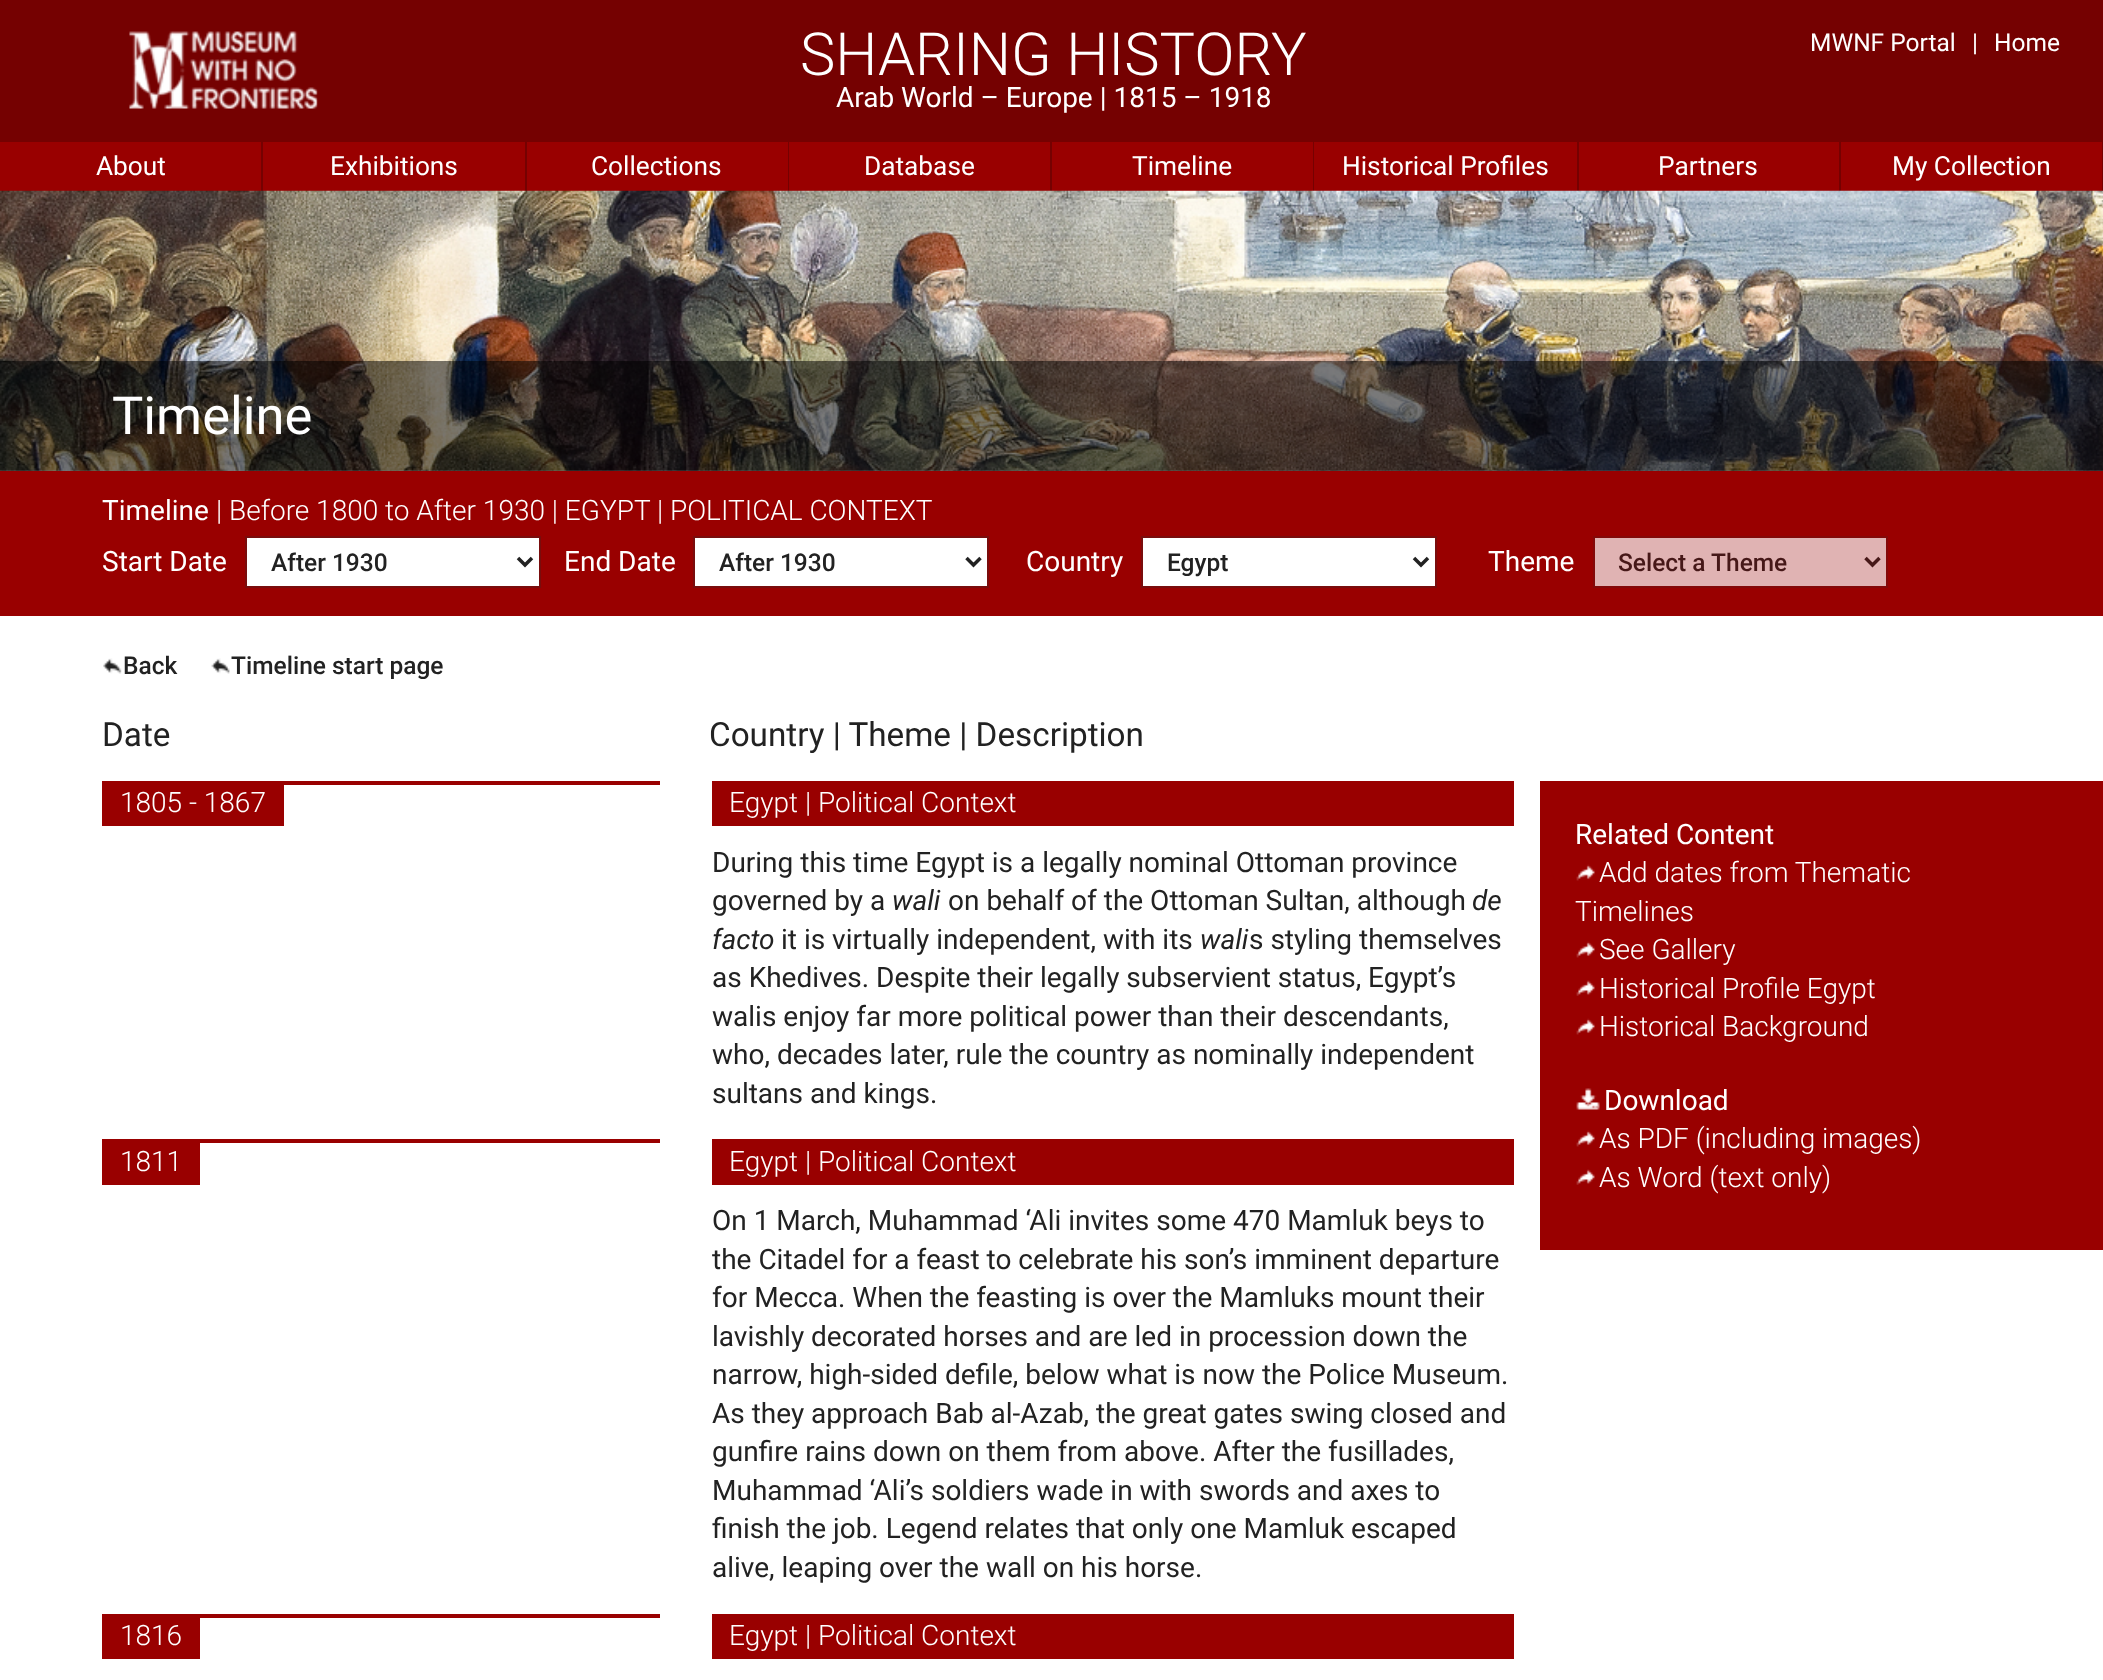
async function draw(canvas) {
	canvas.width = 2103;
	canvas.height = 1680;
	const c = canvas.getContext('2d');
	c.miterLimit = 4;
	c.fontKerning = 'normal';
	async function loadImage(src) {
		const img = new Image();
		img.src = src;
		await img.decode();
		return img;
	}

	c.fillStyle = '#fff';
	c.fillRect(0, 0, 2103, 1680);
	c.fillStyle = '#750101';
	c.fillRect(0, 0, 2103, 142);
	c.drawImage(await loadImage('img1.png'), 129, 31, 189, 78);
	c.font = '300 59.5px Roboto';
	c.fillStyle = '#fff';
	c.fillText('SHARING HISTORY', 800, 75);
	c.font = '28px Roboto';
	c.fillText('Arab World – Europe | 1815 – 1918', 836, 107);
	c.font = '24.5px Roboto';
	for (const [text, x, y] of [
		['MWNF Portal', 1810, 51],
		['|', 1972, 51],
		['Home', 1994, 51],
	]) {
		c.fillText(text, x, y);
	}
	c.fillStyle = '#900';
	c.fillRect(0, 142, 2102, 49);
	c.fillStyle = '#750101';
	c.fillRect(261, 142, 2, 49);
	c.font = '26.25px Roboto';
	c.fillStyle = '#fff';
	c.fillText('About', 96, 175);
	c.fillStyle = '#750101';
	c.fillRect(525, 142, 2, 49);
	c.fillStyle = '#fff';
	c.fillText('Exhibitions', 330, 175);
	c.fillStyle = '#750101';
	c.fillRect(788, 142, 1, 49);
	c.fillStyle = '#fff';
	c.fillText('Collections', 591, 175);
	c.fillStyle = '#750101';
	c.fillRect(1050, 142, 2, 49);
	c.fillStyle = '#fff';
	c.fillText('Database', 864, 175);
	c.fillStyle = '#750101';
	c.fillRect(1313, 142, 1, 49);
	c.fillStyle = '#fff';
	c.fillText('Timeline', 1132, 175);
	c.fillStyle = '#750101';
	c.fillRect(1577, 142, 2, 49);
	c.fillStyle = '#fff';
	c.fillText('Historical Profiles', 1342, 175);
	c.fillStyle = '#750101';
	c.fillRect(1839, 142, 2, 49);
	c.fillStyle = '#fff';
	c.fillText('Partners', 1658, 175);
	c.fillStyle = '#750101';
	c.fillRect(2102, 142, 1, 49);
	c.fillStyle = '#fff';
	c.fillText('My Collection', 1892, 175);
	c.drawImage(await loadImage('img2.png'), 0, 190, 2103, 281);
	c.fillStyle = '#00000085';
	c.fillRect(0, 361, 2103, 110);
	c.font = '52.5px Roboto';
	c.fillStyle = '#fff';
	c.fillText('Timeline', 112, 434);
	c.fillStyle = '#900';
	c.fillRect(0, 471, 2103, 145);
	c.font = '28px Roboto';
	c.fillStyle = '#fff';
	c.fillText('Timeline', 102, 520);
	c.font = '300 28px Roboto';
	c.fillText('| Before 1800 to After 1930 | EGYPT | POLITICAL CONTEXT', 216, 520);
	c.font = '28px Roboto';
	c.fillText('Start Date', 102, 571);
	c.beginPath();
	c.rect(246, 537, 294, 50);
	c.fill();
	c.strokeStyle = '#790d0d';
	c.lineWidth = 2;
	c.stroke();
	c.beginPath();
	c.moveTo(518, 558);
	c.lineTo(525, 565);
	c.lineTo(532, 558);
	c.strokeStyle = '#222';
	c.lineWidth = 3.5;
	c.stroke();
	c.font = '500 24.5px Roboto';
	c.fillStyle = '#222';
	c.fillText('After 1930', 271, 571);
	c.font = '28px Roboto';
	c.fillStyle = '#fff';
	c.fillText('End Date', 564, 571);
	c.beginPath();
	c.rect(694, 537, 294, 50);
	c.fill();
	c.strokeStyle = '#790d0d';
	c.lineWidth = 2;
	c.stroke();
	c.beginPath();
	c.moveTo(966.5, 558);
	c.lineTo(973.5, 565);
	c.lineTo(980.5, 558);
	c.strokeStyle = '#222';
	c.lineWidth = 3.5;
	c.stroke();
	c.font = '500 24.5px Roboto';
	c.fillStyle = '#222';
	c.fillText('After 1930', 719, 571);
	c.font = '28px Roboto';
	c.fillStyle = '#fff';
	c.fillText('Country', 1026, 571);
	c.beginPath();
	c.rect(1142, 537, 294, 50);
	c.fill();
	c.strokeStyle = '#790d0d';
	c.lineWidth = 2;
	c.stroke();
	c.beginPath();
	c.moveTo(1414, 558);
	c.lineTo(1421, 565);
	c.lineTo(1428, 558);
	c.strokeStyle = '#222';
	c.lineWidth = 3.5;
	c.stroke();
	c.font = '500 24.5px Roboto';
	c.fillStyle = '#222';
	c.fillText('Egypt', 1167, 571);
	c.font = '28px Roboto';
	c.fillStyle = '#fff';
	c.fillText('Theme', 1488, 571);
	c.fillStyle = '#e0b3b3';
	c.beginPath();
	c.rect(1594, 537, 293, 50);
	c.fill();
	c.strokeStyle = '#830909';
	c.lineWidth = 2;
	c.stroke();
	c.beginPath();
	c.moveTo(1865.5, 558);
	c.lineTo(1872.5, 565);
	c.lineTo(1879.5, 558);
	c.strokeStyle = '#461818';
	c.lineWidth = 3.5;
	c.stroke();
	c.font = '500 24.5px Roboto';
	c.fillStyle = '#461818';
	c.fillText('Select a Theme', 1618, 571);
	c.drawImage(await loadImage('img3.png'), 103, 658, 19, 16);
	c.fillStyle = '#222';
	c.fillText('Back', 123, 674);
	c.drawImage(await loadImage('img4.png'), 211, 658, 19, 16);
	c.fillText('Timeline start page', 231, 674);
	c.font = '33.25px Roboto';
	c.fillText('Date', 102, 746);
	c.fillText('Country | Theme | Description', 709, 746);
	c.fillStyle = '#900';
	c.fillRect(284, 781, 376, 4);
	c.fillRect(102, 781, 182, 45);
	c.font = '300 28px Roboto';
	c.fillStyle = '#fff';
	c.fillText('1805 - 1867', 120, 812);
	c.fillStyle = '#900';
	c.fillRect(712, 781, 802, 45);
	c.fillStyle = '#fff';
	c.fillText('Egypt | Political Context', 729, 812);
	c.font = '28px Roboto';
	c.fillStyle = '#222';
	c.fillText('During this time Egypt is a legally nominal Ottoman province', 712, 872);
	c.fillText('governed by a', 712, 910);
	c.font = 'italic 28px Roboto';
	c.fillText('wali', 892, 910);
	c.font = '28px Roboto';
	c.fillText('on behalf of the Ottoman Sultan, although', 948, 910);
	c.font = 'italic 28px Roboto';
	c.fillText('de', 1472, 910);
	c.fillText('facto', 712, 949);
	c.font = '28px Roboto';
	c.fillText('it is virtually independent, with its', 781, 949);
	c.font = 'italic 28px Roboto';
	c.fillText('wali', 1200, 949);
	c.font = '28px Roboto';
	for (const [text, x, y] of [
		['s styling themselves', 1249, 949],
		['as Khedives. Despite their legally subservient status, Egypt’s', 712, 987],
		['walis enjoy far more political power than their descendants,', 712, 1026],
		['who, decades later, rule the country as nominally independent', 712, 1064],
		['sultans and kings.', 712, 1103],
	]) {
		c.fillText(text, x, y);
	}
	c.fillStyle = '#900';
	c.fillRect(200, 1139, 460, 4);
	c.fillRect(102, 1139, 98, 46);
	c.font = '300 28px Roboto';
	c.fillStyle = '#fff';
	c.fillText('1811', 120, 1171);
	c.fillStyle = '#900';
	c.fillRect(712, 1139, 802, 46);
	c.fillStyle = '#fff';
	c.fillText('Egypt | Political Context', 729, 1171);
	c.font = '28px Roboto';
	c.fillStyle = '#222';
	for (const [text, x, y] of [
		['On 1 March, Muhammad ‘Ali invites some 470 Mamluk beys to', 712, 1230],
		['the Citadel for a feast to celebrate his son’s imminent departure', 712, 1269],
		['for Mecca. When the feasting is over the Mamluks mount their', 712, 1307],
		['lavishly decorated horses and are led in procession down the', 712, 1346],
		['narrow, high-sided defile, below what is now the Police Museum.', 712, 1384],
		['As they approach Bab al-Azab, the great gates swing closed and', 712, 1423],
		['gunfire rains down on them from above. After the fusillades,', 712, 1461],
		['Muhammad ‘Ali’s soldiers wade in with swords and axes to', 712, 1500],
		['finish the job. Legend relates that only one Mamluk escaped', 712, 1538],
		['alive, leaping over the wall on his horse.', 712, 1577],
	]) {
		c.fillText(text, x, y);
	}
	c.fillStyle = '#900';
	c.fillRect(200, 1614, 460, 4);
	c.fillRect(102, 1614, 98, 45);
	c.font = '300 28px Roboto';
	c.fillStyle = '#fff';
	c.fillText('1816', 120, 1645);
	c.fillStyle = '#900';
	c.fillRect(712, 1614, 802, 45);
	c.fillStyle = '#fff';
	c.fillText('Egypt | Political Context', 729, 1645);
	c.fillStyle = '#900';
	c.fillRect(1540, 781, 563, 469);
	c.font = '28px Roboto';
	c.fillStyle = '#fff';
	c.fillText('Related Content', 1575, 844);
	c.drawImage(await loadImage('img5.png'), 1576, 864, 19, 17);
	c.font = '300 28px Roboto';
	c.fillText('Add dates from Thematic', 1599, 882);
	c.fillText('Timelines', 1575, 921);
	c.drawImage(await loadImage('img5.png'), 1576, 941, 19, 17);
	c.fillText('See Gallery', 1599, 959);
	c.drawImage(await loadImage('img6.png'), 1576, 980, 19, 16);
	c.fillText('Historical Profile Egypt', 1599, 998);
	c.drawImage(await loadImage('img5.png'), 1576, 1018, 19, 17);
	c.fillText('Historical Background', 1599, 1036);
	c.drawImage(await loadImage('img7.png'), 1576, 1088, 24, 22);
	c.font = '28px Roboto';
	c.fillText('Download', 1604, 1110);
	c.drawImage(await loadImage('img5.png'), 1576, 1130, 19, 17);
	c.font = '300 28px Roboto';
	c.fillText('As PDF (including images)', 1599, 1148);
	c.drawImage(await loadImage('img6.png'), 1576, 1169, 19, 16);
	c.fillText('As Word (text only)', 1599, 1187);
}

draw(document.querySelector('canvas'));
